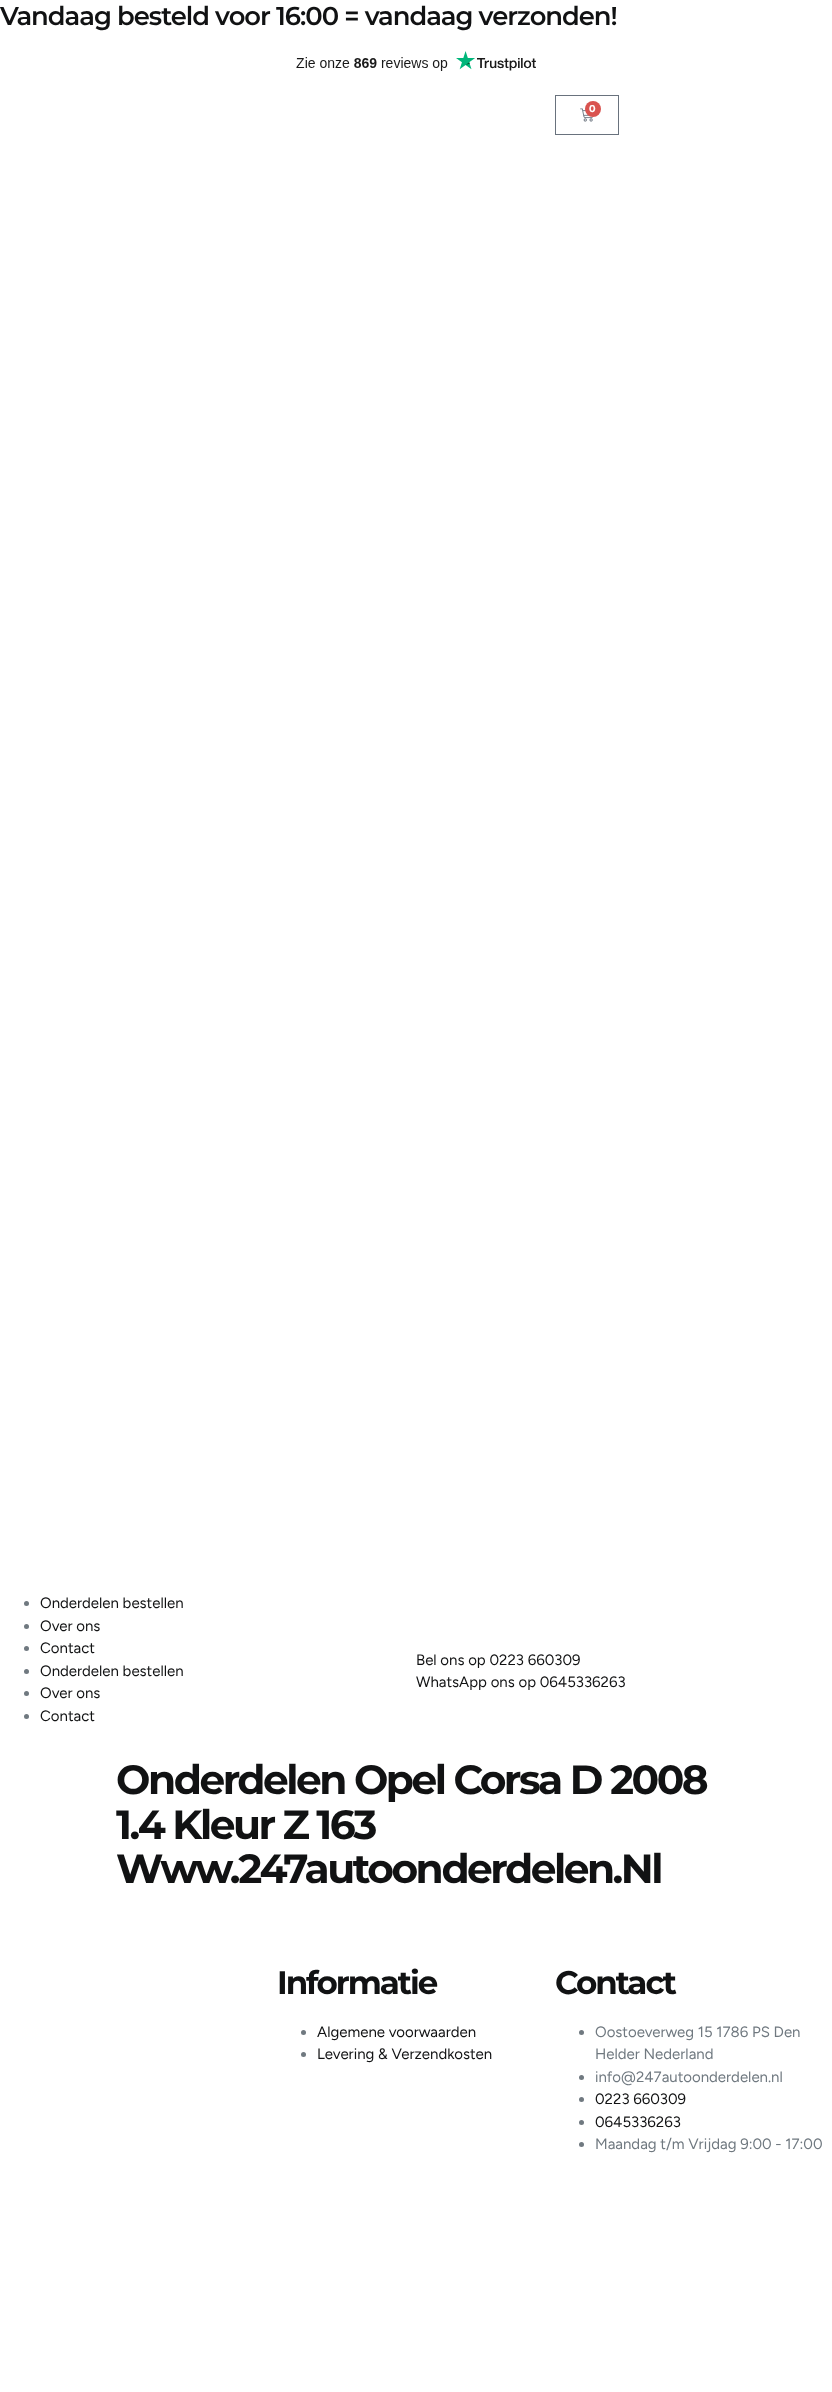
async function draw(canvas) {
	canvas.width = 832;
	canvas.height = 2392;
	const c = canvas.getContext('2d');
	c.miterLimit = 4;
	c.fontKerning = 'normal';
	async function loadImage(src) {
		const img = new Image();
		img.src = src;
		await img.decode();
		return img;
	}

	c.fillStyle = '#fff';
	c.fillRect(0, 0, 832, 2392);
	c.letterSpacing = '-1px';
	c.font = '600 25.85px Montserrat';
	c.fillStyle = '#111213';
	c.fillText('Vandaag besteld voor 16:00 = vandaag verzonden!', 0, 25);
	c.drawImage(await loadImage('img1.png'), 296, 51, 240, 20);
	c.strokeStyle = '#69727d';
	c.strokeRect(555.5, 95.5, 63, 39);
	c.drawImage(await loadImage('img2.png'), 580, 108, 13, 14);
	c.fillStyle = '#d9534f';
	c.beginPath();
	c.arc(593, 109, 8, 0, 2 * Math.PI);
	c.fill();
	c.letterSpacing = '0px';
	c.font = '800 10px Figtree';
	c.fillStyle = '#fff';
	c.fillText('0', 589, 112);
	c.fillStyle = '#707980';
	c.beginPath();
	c.arc(26.5, 1603.5, 2.5, 0, 2 * Math.PI);
	c.fill();
	c.font = '15px Figtree';
	c.fillStyle = '#111213';
	c.fillText('Onderdelen bestellen', 40, 1608);
	c.fillStyle = '#707980';
	c.beginPath();
	c.arc(26.5, 1626.5, 2.5, 0, 2 * Math.PI);
	c.fill();
	c.fillStyle = '#111213';
	c.fillText('Over ons', 40, 1631);
	c.fillStyle = '#707980';
	c.beginPath();
	c.arc(26.5, 1648.5, 2.5, 0, 2 * Math.PI);
	c.fill();
	c.fillStyle = '#111213';
	c.fillText('Contact', 40, 1653);
	c.fillStyle = '#707980';
	c.beginPath();
	c.arc(26.5, 1671.5, 2.5, 0, 2 * Math.PI);
	c.fill();
	c.fillStyle = '#111213';
	c.fillText('Onderdelen bestellen', 40, 1676);
	c.fillStyle = '#707980';
	c.beginPath();
	c.arc(26.5, 1693.5, 2.5, 0, 2 * Math.PI);
	c.fill();
	c.fillStyle = '#111213';
	c.fillText('Over ons', 40, 1698);
	c.fillStyle = '#707980';
	c.beginPath();
	c.arc(26.5, 1716.5, 2.5, 0, 2 * Math.PI);
	c.fill();
	c.fillStyle = '#111213';
	for (const [text, x, y] of [
		['Contact', 40, 1721],
		['Bel ons op 0223 660309', 416, 1665],
		['WhatsApp ons op 0645336263', 416, 1687],
	]) {
		c.fillText(text, x, y);
	}
	c.letterSpacing = '-2.5px';
	c.font = 'bold 40.75px Montserrat';
	for (const [text, x, y] of [
		['Onderdelen Opel Corsa D 2008', 116, 1794],
		['1.4 Kleur Z 163', 116, 1839],
		['Www.247autoonderdelen.Nl', 116, 1883],
	]) {
		c.fillText(text, x, y);
	}
	c.letterSpacing = '-2px';
	c.font = 'bold 32.5px Montserrat';
	c.fillText('Informatie', 277, 1994);
	c.fillStyle = '#707980';
	c.beginPath();
	c.arc(303.5, 2032.5, 2.5, 0, 2 * Math.PI);
	c.fill();
	c.letterSpacing = '0px';
	c.font = '15px Figtree';
	c.fillStyle = '#111213';
	c.fillText('Algemene voorwaarden', 317, 2037);
	c.fillStyle = '#707980';
	c.beginPath();
	c.arc(303.5, 2054.5, 2.5, 0, 2 * Math.PI);
	c.fill();
	c.fillStyle = '#111213';
	c.fillText('Levering & Verzendkosten', 317, 2059);
	c.letterSpacing = '-2px';
	c.font = 'bold 32.5px Montserrat';
	c.fillText('Contact', 555, 1994);
	c.fillStyle = '#707980';
	c.beginPath();
	c.arc(581.5, 2032.5, 2.5, 0, 2 * Math.PI);
	c.fill();
	c.letterSpacing = '0px';
	c.font = '15px Figtree';
	c.fillText('Oostoeverweg 15 1786 PS Den', 595, 2037);
	c.fillText('Helder Nederland', 595, 2059);
	c.beginPath();
	c.arc(581.5, 2077.5, 2.5, 0, 2 * Math.PI);
	c.fill();
	c.fillText('info@247autoonderdelen.nl', 595, 2082);
	c.beginPath();
	c.arc(581.5, 2099.5, 2.5, 0, 2 * Math.PI);
	c.fill();
	c.fillStyle = '#111213';
	c.fillText('0223 660309', 595, 2104);
	c.fillStyle = '#707980';
	c.beginPath();
	c.arc(581.5, 2122.5, 2.5, 0, 2 * Math.PI);
	c.fill();
	c.fillStyle = '#111213';
	c.fillText('0645336263', 595, 2127);
	c.fillStyle = '#707980';
	c.beginPath();
	c.arc(581.5, 2144.5, 2.5, 0, 2 * Math.PI);
	c.fill();
	c.fillText('Maandag t/m Vrijdag 9:00 - 17:00', 595, 2149);
}

draw(document.querySelector('canvas'));
